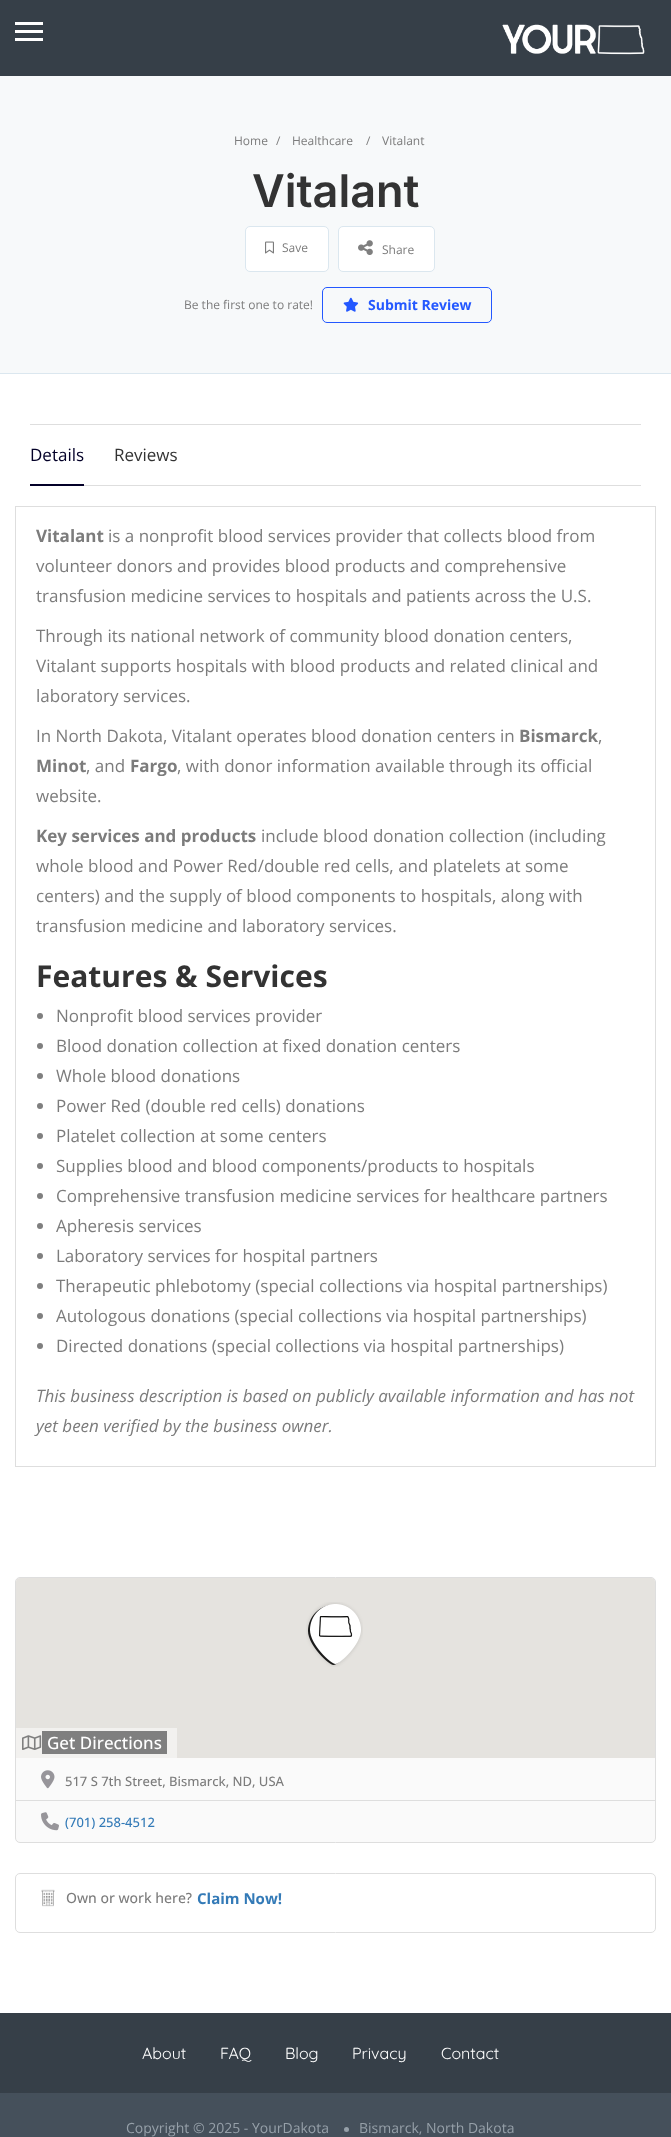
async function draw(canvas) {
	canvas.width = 671;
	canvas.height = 2137;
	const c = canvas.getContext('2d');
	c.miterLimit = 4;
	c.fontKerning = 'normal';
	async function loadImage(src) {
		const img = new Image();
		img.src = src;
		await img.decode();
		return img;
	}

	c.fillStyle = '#363f48';
	c.fillRect(0, 0, 671, 2137);
	for (const [x, y, w, h, color] of [
		[15, 22, 28, 3, '#fff'],
		[15, 30, 28, 3, '#fff'],
		[15, 38, 28, 3, '#fff'],
	]) {
		c.fillStyle = color;
		c.fillRect(x, y, w, h);
	}
	c.drawImage(await loadImage('img1.png'), 502, 24, 143, 31);
	c.fillStyle = '#f7f9fa';
	c.fillRect(0, 76, 671, 297);
	c.fillStyle = '#dbe7ef';
	c.fillRect(0, 373, 671, 1);
	c.font = '12px Open Sans';
	c.fillStyle = '#7c7c7c';
	for (const [text, x, y] of [
		['Home', 234, 145],
		['/', 276, 145],
		['Healthcare', 292, 145],
		['/', 366, 145],
		['Vitalant', 382, 145],
	]) {
		c.fillText(text, x, y);
	}
	c.font = '600 45px Inter';
	c.fillStyle = '#333';
	c.fillText('Vitalant', 252, 207);
	c.fillStyle = '#fff';
	c.beginPath();
	c.roundRect(245.5, 226.5, 83, 45, 4.5);
	c.fill();
	c.strokeStyle = '#dbe7ef';
	c.stroke();
	c.drawImage(await loadImage('img2.png'), 265, 241, 9, 13);
	c.font = '12px Open Sans';
	c.fillStyle = '#7c7c7c';
	c.fillText('Save', 282, 252);
	c.fillStyle = '#fff';
	c.beginPath();
	c.roundRect(338.5, 226.5, 96, 45, 4.5);
	c.fill();
	c.stroke();
	c.drawImage(await loadImage('img3.png'), 358, 240, 15, 15);
	c.fillStyle = '#7c7c7c';
	c.fillText('Share', 382, 254);
	c.fillText('Be the first one to rate!', 184, 309);
	c.beginPath();
	c.roundRect(322.5, 287.5, 169, 35, 4.5);
	c.strokeStyle = '#2458ff';
	c.stroke();
	c.drawImage(await loadImage('img4.png'), 343, 297, 16, 15);
	c.font = 'bold 14px Open Sans';
	c.fillStyle = '#2458ff';
	c.fillText('Submit Review', 368, 310);
	for (const [x, y, w, h, color] of [
		[0, 374, 671, 1639, '#fff'],
		[30, 424, 611, 1, '#dedede'],
		[84, 485, 557, 1, '#dedede'],
	]) {
		c.fillStyle = color;
		c.fillRect(x, y, w, h);
	}
	c.font = '17px Open Sans';
	c.fillStyle = '#030028';
	c.fillText('Details', 30, 461);
	c.fillRect(30, 484, 54, 2);
	c.fillStyle = '#333';
	c.fillText('Reviews', 114, 461);
	c.strokeStyle = '#dedede';
	c.strokeRect(15.5, 506.5, 640, 960);
	c.font = 'bold 17px Open Sans';
	c.fillStyle = '#7c7c7c';
	c.fillText('Vitalant', 36, 542);
	c.font = '17px Open Sans';
	for (const [text, x, y] of [
		['is a nonprofit blood services provider that collects blood from', 108, 542],
		['volunteer donors and provides blood products and comprehensive', 36, 572],
		['transfusion medicine services to hospitals and patients across the U.S.', 36, 602],
		['Through its national network of community blood donation centers,', 36, 642],
		['Vitalant supports hospitals with blood products and related clinical and', 36, 672],
		['laboratory services.', 36, 702],
		['In North Dakota, Vitalant operates blood donation centers in', 36, 742],
	]) {
		c.fillText(text, x, y);
	}
	c.font = 'bold 17px Open Sans';
	c.fillText('Bismarck', 519, 742);
	c.font = '17px Open Sans';
	c.fillText(',', 598, 742);
	c.font = 'bold 17px Open Sans';
	c.fillText('Minot', 36, 772);
	c.font = '17px Open Sans';
	c.fillText(', and', 86, 772);
	c.font = 'bold 17px Open Sans';
	c.fillText('Fargo', 130, 772);
	c.font = '17px Open Sans';
	c.fillText(', with donor information available through its official', 177, 772);
	c.fillText('website.', 36, 802);
	c.font = 'bold 17px Open Sans';
	c.fillText('Key services and products', 36, 842);
	c.font = '17px Open Sans';
	for (const [text, x, y] of [
		['include blood donation collection (including', 261, 842],
		['whole blood and Power Red/double red cells, and platelets at some', 36, 872],
		['centers) and the supply of blood components to hospitals, along with', 36, 902],
		['transfusion medicine and laboratory services.', 36, 932],
	]) {
		c.fillText(text, x, y);
	}
	c.font = 'bold 30px Open Sans';
	c.fillStyle = '#333';
	c.fillText('Features & Services', 36, 987);
	c.fillStyle = '#7f7f7f';
	c.beginPath();
	c.arc(40, 1016, 3, 0, 2 * Math.PI);
	c.fill();
	c.font = '17px Open Sans';
	c.fillStyle = '#7c7c7c';
	c.fillText('Nonprofit blood services provider', 56, 1022);
	c.fillStyle = '#7f7f7f';
	c.beginPath();
	c.arc(40, 1046, 3, 0, 2 * Math.PI);
	c.fill();
	c.fillStyle = '#7c7c7c';
	c.fillText('Blood donation collection at fixed donation centers', 56, 1052);
	c.fillStyle = '#7f7f7f';
	c.beginPath();
	c.arc(40, 1076, 3, 0, 2 * Math.PI);
	c.fill();
	c.fillStyle = '#7c7c7c';
	c.fillText('Whole blood donations', 56, 1082);
	c.fillStyle = '#7f7f7f';
	c.beginPath();
	c.arc(40, 1106, 3, 0, 2 * Math.PI);
	c.fill();
	c.fillStyle = '#7c7c7c';
	c.fillText('Power Red (double red cells) donations', 56, 1112);
	c.fillStyle = '#7f7f7f';
	c.beginPath();
	c.arc(40, 1136, 3, 0, 2 * Math.PI);
	c.fill();
	c.fillStyle = '#7c7c7c';
	c.fillText('Platelet collection at some centers', 56, 1142);
	c.fillStyle = '#7f7f7f';
	c.beginPath();
	c.arc(40, 1166, 3, 0, 2 * Math.PI);
	c.fill();
	c.fillStyle = '#7c7c7c';
	c.fillText('Supplies blood and blood components/products to hospitals', 56, 1172);
	c.fillStyle = '#7f7f7f';
	c.beginPath();
	c.arc(40, 1196, 3, 0, 2 * Math.PI);
	c.fill();
	c.fillStyle = '#7c7c7c';
	c.fillText('Comprehensive transfusion medicine services for healthcare partners', 56, 1202);
	c.fillStyle = '#7f7f7f';
	c.beginPath();
	c.arc(40, 1226, 3, 0, 2 * Math.PI);
	c.fill();
	c.fillStyle = '#7c7c7c';
	c.fillText('Apheresis services', 56, 1232);
	c.fillStyle = '#7f7f7f';
	c.beginPath();
	c.arc(40, 1256, 3, 0, 2 * Math.PI);
	c.fill();
	c.fillStyle = '#7c7c7c';
	c.fillText('Laboratory services for hospital partners', 56, 1262);
	c.fillStyle = '#7f7f7f';
	c.beginPath();
	c.arc(40, 1286, 3, 0, 2 * Math.PI);
	c.fill();
	c.fillStyle = '#7c7c7c';
	c.fillText('Therapeutic phlebotomy (special collections via hospital partnerships)', 56, 1292);
	c.fillStyle = '#7f7f7f';
	c.beginPath();
	c.arc(40, 1316, 3, 0, 2 * Math.PI);
	c.fill();
	c.fillStyle = '#7c7c7c';
	c.fillText('Autologous donations (special collections via hospital partnerships)', 56, 1322);
	c.fillStyle = '#7f7f7f';
	c.beginPath();
	c.arc(40, 1346, 3, 0, 2 * Math.PI);
	c.fill();
	c.fillStyle = '#7c7c7c';
	c.fillText('Directed donations (special collections via hospital partnerships)', 56, 1352);
	c.font = 'italic 17px Open Sans';
	c.fillText('This business description is based on publicly available information and has not', 36, 1402);
	c.fillText('yet been verified by the business owner.', 36, 1432);
	c.fillStyle = '#fafafa';
	c.beginPath();
	c.roundRect(15.5, 1577.5, 640, 265, 4.5);
	c.fill();
	c.stroke();
	c.fillStyle = '#e5e3df';
	c.beginPath();
	c.roundRect(16, 1578, 639, 180, [4, 4, 0, 0]);
	c.fill();
	c.drawImage(await loadImage('img5.png'), 306, 1602, 57, 65);
	c.fillStyle = '#f2f1ef';
	c.fillRect(16, 1728, 161, 30);
	c.drawImage(await loadImage('img6.png'), 22, 1735, 20, 15);
	c.fillStyle = '#7f7f7f';
	c.fillRect(42, 1731, 125, 23);
	c.font = '500 17px Open Sans';
	c.fillStyle = '#fff';
	c.fillText('Get Directions', 47, 1749);
	c.fillStyle = '#dedede';
	c.fillRect(16, 1800, 639, 1);
	c.drawImage(await loadImage('img7.png'), 41, 1770, 14, 19);
	c.font = '500 13px Open Sans';
	c.fillStyle = '#7c7c7c';
	c.fillText('517 S 7th Street, Bismarck, ND, USA', 65, 1786);
	c.drawImage(await loadImage('img8.png'), 41, 1812, 18, 19);
	c.fillStyle = '#337ab7';
	c.fillText('(701) 258-4512', 65, 1827);
	c.beginPath();
	c.roundRect(15.5, 1873.5, 640, 59, 4.5);
	c.stroke();
	c.drawImage(await loadImage('img9.png'), 41, 1889, 14, 18);
	c.font = '500 14px Open Sans';
	c.fillStyle = '#7c7c7c';
	c.fillText('Own or work here?', 66, 1903);
	c.font = 'bold 15px Open Sans';
	c.fillStyle = '#337ab7';
	c.fillText('Claim Now!', 197, 1904);
	c.font = '300 16px Quicksand';
	c.fillStyle = '#fff';
	for (const [text, x, y] of [
		['About', 142, 2059],
		['FAQ', 220, 2059],
		['Blog', 285, 2059],
		['Privacy', 352, 2059],
		['Contact', 441, 2059],
	]) {
		c.fillText(text, x, y);
	}
	c.fillStyle = '#45505b';
	c.fillRect(0, 2093, 671, 44);
	c.font = '14px Open Sans';
	c.fillStyle = '#96a0a9';
	c.fillText('Copyright © 2025 - YourDakota', 126, 2133);
	c.beginPath();
	c.arc(346.5, 2129.5, 2.5, 0, 2 * Math.PI);
	c.fill();
	c.fillText('Bismarck, North Dakota', 359, 2133);
}

draw(document.querySelector('canvas'));
